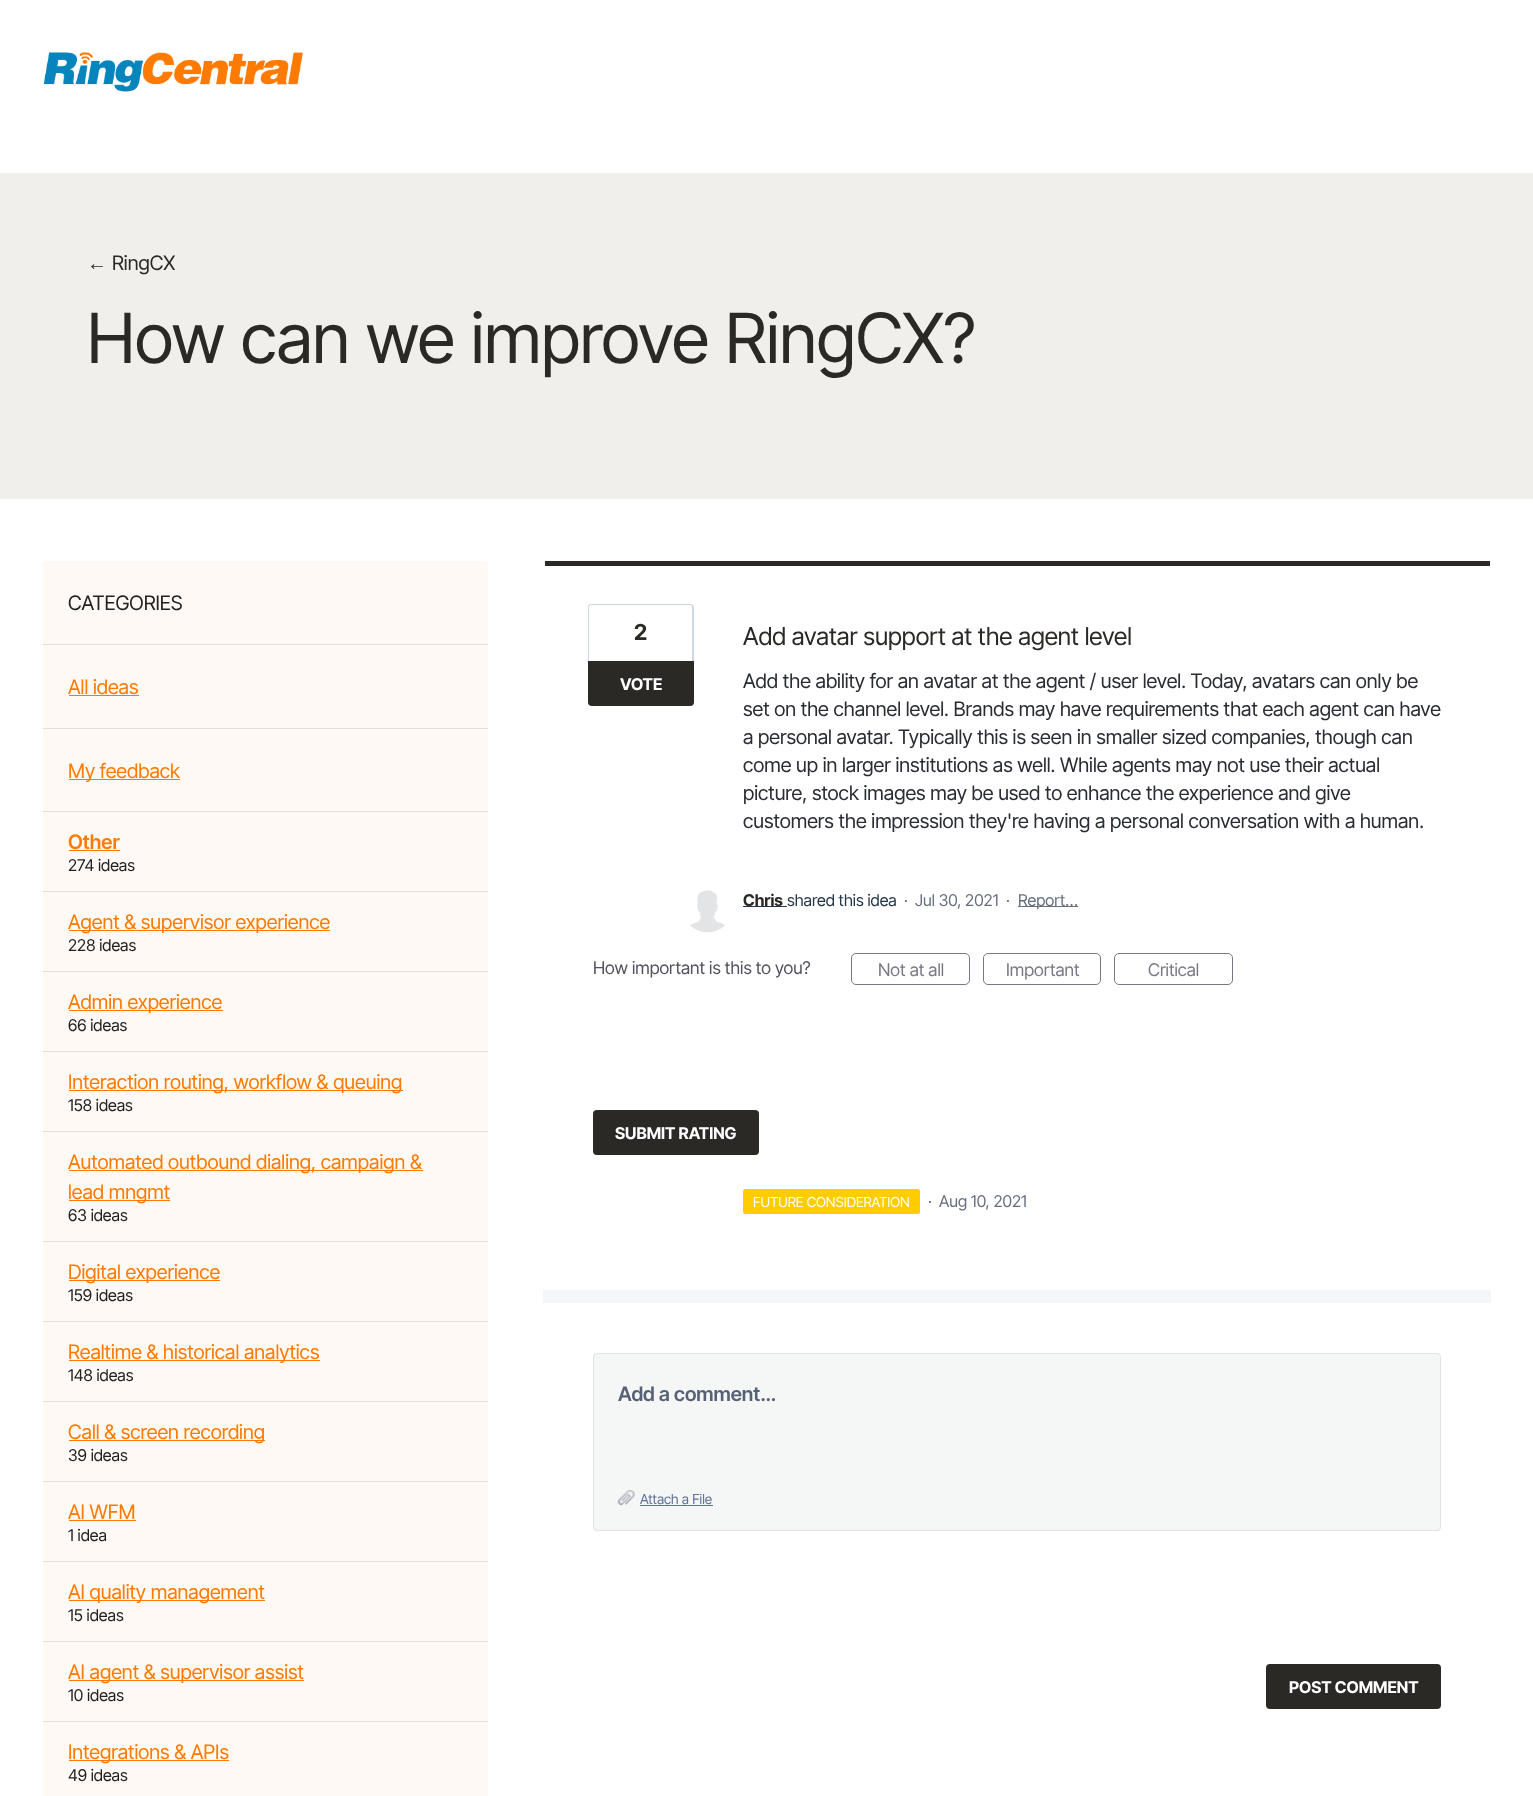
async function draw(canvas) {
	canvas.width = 1533;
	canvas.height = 1796;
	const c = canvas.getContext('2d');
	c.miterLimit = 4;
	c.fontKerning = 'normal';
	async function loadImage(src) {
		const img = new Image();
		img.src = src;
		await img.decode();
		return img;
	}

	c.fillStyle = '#f1efec';
	c.fillRect(0, 0, 1533, 1796);
	c.fillStyle = '#fff';
	c.fillRect(0, 0, 1533, 173);
	c.drawImage(await loadImage('img1.png'), 43, 52, 260, 40);
	c.font = '20px Liberation Sans';
	c.fillStyle = '#2b2926';
	c.fillText('←', 87, 270);
	c.font = '20px Inter Tight';
	c.fillText('RingCX', 112, 270);
	c.font = '69.25px Inter Tight';
	c.fillText('How can we improve RingCX?', 87, 363);
	c.fillStyle = '#fff';
	c.fillRect(0, 499, 1533, 1297);
	c.fillStyle = '#fff9f5';
	c.beginPath();
	c.roundRect(43, 561, 445, 84, [4, 4, 0, 0]);
	c.fill();
	c.fillStyle = '#e6e0dd';
	c.fillRect(43, 644, 445, 1);
	c.font = '20px Inter Tight';
	c.fillStyle = '#222';
	c.fillText('CATEGORIES', 68, 610);
	c.fillStyle = '#fff9f5';
	c.fillRect(43, 645, 445, 83);
	c.fillStyle = '#e6e0dd';
	c.fillRect(43, 728, 445, 1);
	c.fillStyle = '#ff7a00';
	c.fillText('All ideas', 68, 694);
	for (const [x, y, w, h, color] of [
		[69, 695, 70, 1, '#ff7a00'],
		[43, 729, 445, 1067, '#fff9f5'],
		[43, 811, 445, 1, '#e6e0dd'],
		[69, 779, 111, 1, '#ff7a00'],
	]) {
		c.fillStyle = color;
		c.fillRect(x, y, w, h);
	}
	c.fillText('My feedback', 68, 778);
	c.fillStyle = '#e6e0dd';
	c.fillRect(43, 891, 445, 1);
	c.font = '600 20px Inter Tight';
	c.fillStyle = '#ff7a00';
	c.fillText('Other', 68, 849);
	c.fillRect(69, 850, 51, 1);
	c.font = '16.25px Inter Tight';
	c.fillStyle = '#222';
	c.fillText('274 ideas', 68, 871);
	c.fillStyle = '#e6e0dd';
	c.fillRect(43, 971, 445, 1);
	c.fillStyle = '#ff7a00';
	c.fillRect(69, 930, 261, 1);
	c.font = '20px Inter Tight';
	c.fillText('Agent & supervisor experience', 68, 929);
	c.font = '16.25px Inter Tight';
	c.fillStyle = '#222';
	c.fillText('228 ideas', 68, 951);
	c.fillStyle = '#e6e0dd';
	c.fillRect(43, 1051, 445, 1);
	c.fillStyle = '#ff7a00';
	c.fillRect(69, 1010, 154, 1);
	c.font = '20px Inter Tight';
	c.fillText('Admin experience', 68, 1009);
	c.font = '16.25px Inter Tight';
	c.fillStyle = '#222';
	c.fillText('66 ideas', 68, 1031);
	c.fillStyle = '#e6e0dd';
	c.fillRect(43, 1131, 445, 1);
	c.fillStyle = '#ff7a00';
	c.fillRect(69, 1090, 334, 1);
	c.font = '20px Inter Tight';
	c.fillText('Interaction routing, workflow & queuing', 68, 1089);
	c.font = '16.25px Inter Tight';
	c.fillStyle = '#222';
	c.fillText('158 ideas', 68, 1111);
	c.fillStyle = '#e6e0dd';
	c.fillRect(43, 1241, 445, 1);
	c.fillStyle = '#ff7a00';
	c.fillRect(69, 1170, 354, 1);
	c.font = '20px Inter Tight';
	c.fillText('Automated outbound dialing, campaign &', 68, 1169);
	c.fillRect(69, 1200, 101, 1);
	c.fillText('lead mngmt', 68, 1199);
	c.font = '16.25px Inter Tight';
	c.fillStyle = '#222';
	c.fillText('63 ideas', 68, 1221);
	c.fillStyle = '#e6e0dd';
	c.fillRect(43, 1321, 445, 1);
	c.fillStyle = '#ff7a00';
	c.fillRect(69, 1280, 151, 1);
	c.font = '20px Inter Tight';
	c.fillText('Digital experience', 68, 1279);
	c.font = '16.25px Inter Tight';
	c.fillStyle = '#222';
	c.fillText('159 ideas', 68, 1301);
	c.fillStyle = '#e6e0dd';
	c.fillRect(43, 1401, 445, 1);
	c.fillStyle = '#ff7a00';
	c.fillRect(69, 1360, 251, 1);
	c.font = '20px Inter Tight';
	c.fillText('Realtime & historical analytics', 68, 1359);
	c.font = '16.25px Inter Tight';
	c.fillStyle = '#222';
	c.fillText('148 ideas', 68, 1381);
	c.fillStyle = '#e6e0dd';
	c.fillRect(43, 1481, 445, 1);
	c.fillStyle = '#ff7a00';
	c.fillRect(69, 1440, 196, 1);
	c.font = '20px Inter Tight';
	c.fillText('Call & screen recording', 68, 1439);
	c.font = '16.25px Inter Tight';
	c.fillStyle = '#222';
	c.fillText('39 ideas', 68, 1461);
	c.fillStyle = '#e6e0dd';
	c.fillRect(43, 1561, 445, 1);
	c.font = '20px Inter Tight';
	c.fillStyle = '#ff7a00';
	c.fillText('AI WFM', 68, 1519);
	c.fillRect(69, 1520, 67, 1);
	c.font = '16.25px Inter Tight';
	c.fillStyle = '#222';
	c.fillText('1 idea', 68, 1541);
	c.fillStyle = '#e6e0dd';
	c.fillRect(43, 1641, 445, 1);
	c.fillStyle = '#ff7a00';
	c.fillRect(69, 1600, 196, 1);
	c.font = '20px Inter Tight';
	c.fillText('AI quality management', 68, 1599);
	c.font = '16.25px Inter Tight';
	c.fillStyle = '#222';
	c.fillText('15 ideas', 68, 1621);
	c.fillStyle = '#e6e0dd';
	c.fillRect(43, 1721, 445, 1);
	c.fillStyle = '#ff7a00';
	c.fillRect(69, 1680, 235, 1);
	c.font = '20px Inter Tight';
	c.fillText('AI agent & supervisor assist', 68, 1679);
	c.font = '16.25px Inter Tight';
	c.fillStyle = '#222';
	c.fillText('10 ideas', 68, 1701);
	c.fillStyle = '#ff7a00';
	c.fillRect(69, 1760, 160, 1);
	c.font = '20px Inter Tight';
	c.fillText('Integrations & APIs', 68, 1759);
	c.font = '16.25px Inter Tight';
	c.fillStyle = '#222';
	c.fillText('49 ideas', 68, 1781);
	c.fillStyle = '#2b2926';
	c.fillRect(545, 561, 945, 5);
	c.fillStyle = '#cfd7e6';
	c.beginPath();
	c.moveTo(591, 604);
	c.lineTo(690, 604);
	c.bezierCurveTo(692, 604, 694, 605, 694, 608);
	c.lineTo(694, 661);
	c.lineTo(588, 661);
	c.lineTo(588, 608);
	c.bezierCurveTo(588, 605, 589, 604, 591, 604);
	c.closePath();
	c.moveTo(591, 605);
	c.lineTo(690, 605);
	c.bezierCurveTo(691, 605, 692, 606, 692, 608);
	c.lineTo(692, 661);
	c.lineTo(589, 661);
	c.lineTo(589, 608);
	c.bezierCurveTo(589, 606, 590, 605, 591, 605);
	c.closePath();
	c.fill('evenodd');
	c.font = 'bold 22px Inter Tight';
	c.fillStyle = '#2b2926';
	c.fillText('2', 634, 640);
	c.beginPath();
	c.roundRect(588, 661, 106, 45, [0, 0, 4, 4]);
	c.fill();
	c.font = 'bold 16.25px Inter Tight';
	c.fillStyle = '#fff';
	c.fillText('VOTE', 620, 690);
	c.font = '24.6px Inter Tight';
	c.fillStyle = '#2b2926';
	c.fillText('Add avatar support at the agent level', 743, 645);
	c.font = '20px Inter Tight';
	c.fillStyle = '#292c33';
	for (const [text, x, y] of [
		['Add the ability for an avatar at the agent / user level. Today, avatars can only be', 743, 688],
		['set on the channel level. Brands may have requirements that each agent can have', 743, 716],
		['a personal avatar. Typically this is seen in smaller sized companies, though can', 743, 744],
		['come up in larger institutions as well. While agents may not use their actual', 743, 772],
		['picture, stock images may be used to enhance the experience and give', 743, 800],
		['customers the impression they\'re having a personal conversation with a human.', 743, 828],
	]) {
		c.fillText(text, x, y);
	}
	c.drawImage(await loadImage('img2.png'), 690, 890, 35, 43);
	c.fillStyle = '#253746';
	c.fillRect(743, 906, 44, 1);
	c.font = 'bold 16.25px Inter Tight';
	c.fillStyle = '#2b2926';
	c.fillText('Chris', 743, 906);
	c.font = '16.25px Inter Tight';
	c.fillStyle = '#253746';
	c.fillText('shared this idea', 787, 906);
	c.fillStyle = '#646b72';
	c.fillText('·', 904, 906);
	c.fillStyle = '#666f80';
	c.fillText('Jul 30, 2021', 915, 906);
	c.fillStyle = '#646b72';
	c.fillText('·', 1006, 906);
	c.fillStyle = '#666f80';
	c.fillRect(1018, 906, 60, 1);
	c.fillText('Report…', 1018, 906);
	c.font = '17.5px Inter Tight';
	c.fillStyle = '#525260';
	c.fillText('How important is this to you?', 593, 974);
	c.beginPath();
	c.roundRect(851.5, 953.5, 118, 31, 4.5);
	c.strokeStyle = '#797986';
	c.stroke();
	c.fillStyle = '#797986';
	c.fillText('Not at all', 878, 976);
	c.beginPath();
	c.roundRect(983.5, 953.5, 117, 31, 4.5);
	c.stroke();
	c.fillText('Important', 1006, 976);
	c.beginPath();
	c.roundRect(1114.5, 953.5, 118, 31, 4.5);
	c.stroke();
	c.fillText('Critical', 1148, 976);
	c.fillStyle = '#2b2926';
	c.beginPath();
	c.roundRect(593, 1110, 166, 45, 4);
	c.fill();
	c.font = 'bold 16.25px Inter Tight';
	c.fillStyle = '#fff';
	c.fillText('SUBMIT RATING', 615, 1139);
	c.fillStyle = '#fc0';
	c.beginPath();
	c.roundRect(743, 1189, 177, 25, 2.5);
	c.fill();
	c.font = '13.75px Inter Tight';
	c.fillStyle = '#fff';
	c.fillText('FUTURE CONSIDERATION', 753, 1207);
	c.font = '16.25px Inter Tight';
	c.fillStyle = '#646b72';
	c.fillText('·', 928, 1207);
	c.fillStyle = '#666f80';
	c.fillText('Aug 10, 2021', 939, 1207);
	c.fillStyle = '#f5f6f7';
	c.fillRect(543, 1290, 948, 13);
	c.fillStyle = '#f5f6f6';
	c.beginPath();
	c.roundRect(593, 1353, 848, 178, 4);
	c.fill();
	c.beginPath();
	c.roundRect(593.5, 1353.5, 847, 177, 3.5);
	c.strokeStyle = '#2537461a';
	c.stroke();
	c.font = '600 20px Inter Tight';
	c.fillStyle = '#566177';
	c.fillText('Add a comment…', 618, 1401);
	c.drawImage(await loadImage('img3.png'), 617, 1490, 19, 16);
	c.font = '13.75px Inter Tight';
	c.fillStyle = '#5d7298';
	c.fillText('Attach a File', 640, 1504);
	c.fillRect(640, 1505, 73, 1);
	c.fillStyle = '#2b2926';
	c.beginPath();
	c.roundRect(1266, 1664, 175, 45, 4);
	c.fill();
	c.font = 'bold 16.25px Inter Tight';
	c.fillStyle = '#fff';
	c.fillText('POST COMMENT', 1289, 1693);
}

draw(document.querySelector('canvas'));
